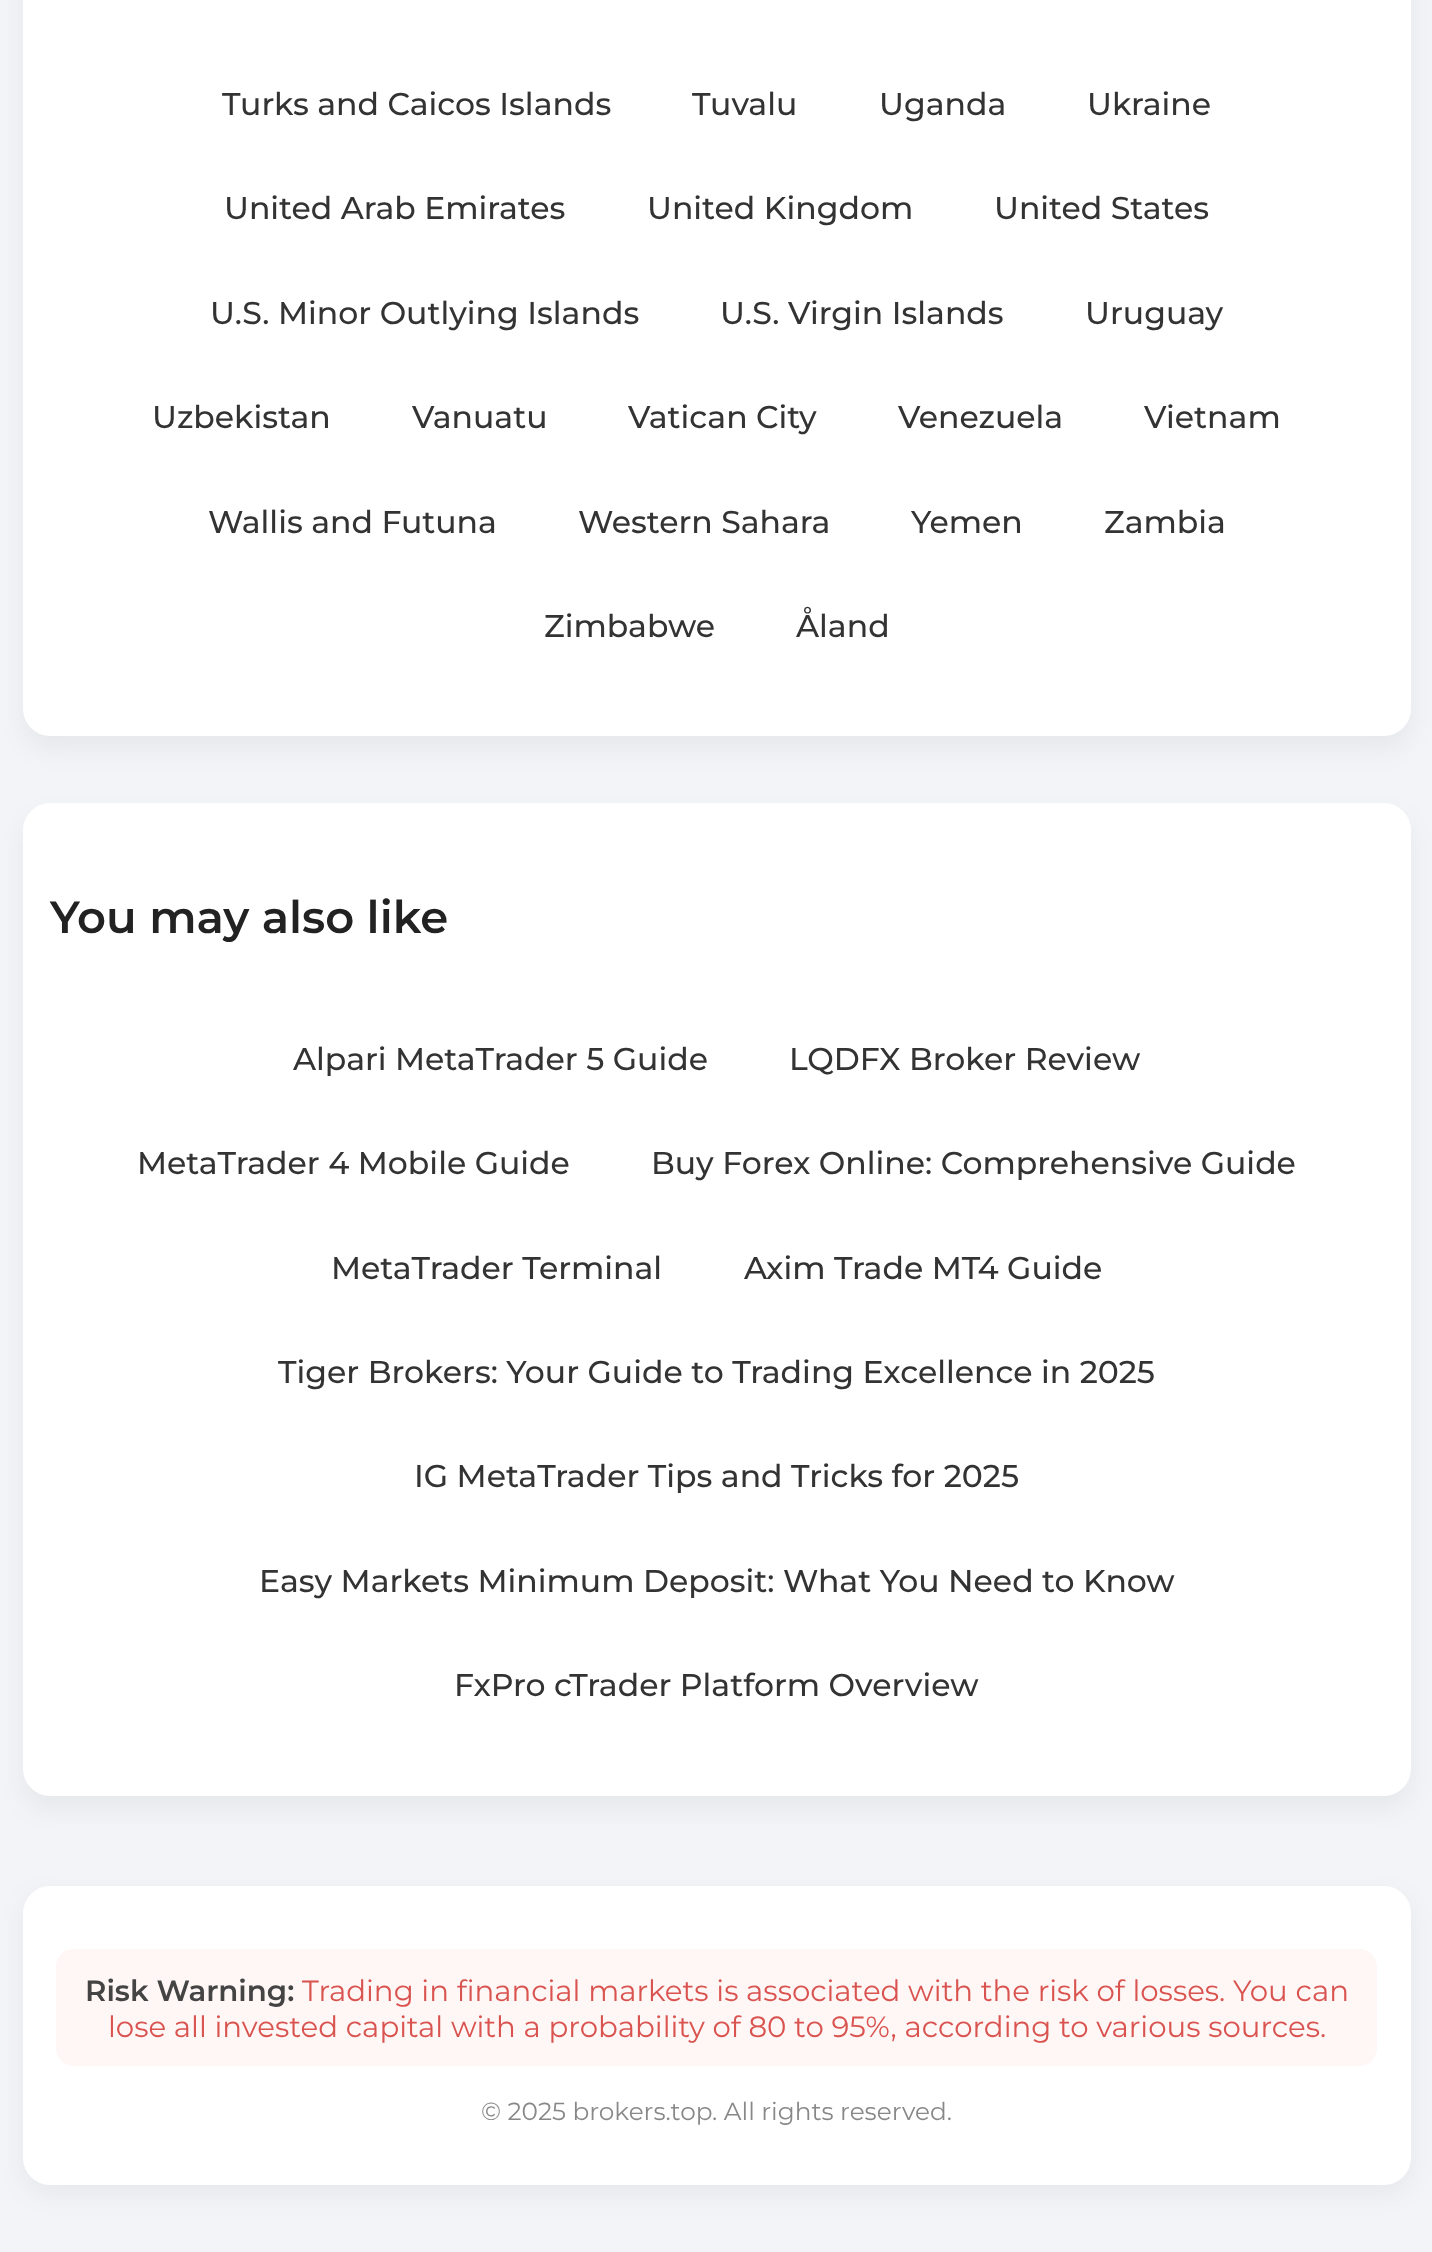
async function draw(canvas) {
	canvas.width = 1432;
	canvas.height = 2252;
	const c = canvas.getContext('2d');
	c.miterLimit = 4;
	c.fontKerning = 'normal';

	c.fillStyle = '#f2f4f8';
	c.fillRect(0, 0, 1432, 2252);
	c.fillStyle = '#0000000d';
	c.filter = 'blur(13.5px)';
	c.beginPath();
	c.roundRect(23, -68, 1388, 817, 27);
	c.fill();
	c.filter = 'none';
	c.fillStyle = '#fff';
	c.beginPath();
	c.roundRect(23, -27, 1388, 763, 27);
	c.fill();
	c.font = '500 31.5px Montserrat';
	c.fillStyle = '#333';
	for (const [text, x, y] of [
		['Turks and Caicos Islands', 222, 115],
		['Tuvalu', 692, 115],
		['Uganda', 879, 115],
		['Ukraine', 1087, 115],
		['United Arab Emirates', 224, 219],
		['United Kingdom', 647, 219],
		['United States', 994, 219],
		['U.S. Minor Outlying Islands', 210, 324],
		['U.S. Virgin Islands', 720, 324],
		['Uruguay', 1085, 324],
		['Uzbekistan', 152, 428],
		['Vanuatu', 412, 428],
		['Vatican City', 628, 428],
		['Venezuela', 898, 428],
		['Vietnam', 1144, 428],
		['Wallis and Futuna', 208, 533],
		['Western Sahara', 578, 533],
		['Yemen', 911, 533],
		['Zambia', 1104, 533],
		['Zimbabwe', 544, 637],
		['Åland', 796, 637],
	]) {
		c.fillText(text, x, y);
	}
	c.fillStyle = '#0000000d';
	c.filter = 'blur(13.5px)';
	c.beginPath();
	c.roundRect(23, 817, 1388, 992, 27);
	c.fill();
	c.filter = 'none';
	c.fillStyle = '#fff';
	c.beginPath();
	c.roundRect(23, 803, 1388, 993, 27);
	c.fill();
	c.font = '600 45px Montserrat';
	c.fillStyle = '#222';
	c.fillText('You may also like', 50, 933);
	c.font = '500 31.5px Montserrat';
	c.fillStyle = '#333';
	for (const [text, x, y] of [
		['Alpari MetaTrader 5 Guide', 293, 1070],
		['LQDFX Broker Review', 789, 1070],
		['MetaTrader 4 Mobile Guide', 137, 1174],
		['Buy Forex Online: Comprehensive Guide', 651, 1174],
		['MetaTrader Terminal', 331, 1279],
		['Axim Trade MT4 Guide', 744, 1279],
		['Tiger Brokers: Your Guide to Trading Excellence in 2025', 278, 1383],
		['IG MetaTrader Tips and Tricks for 2025', 414, 1487],
		['Easy Markets Minimum Deposit: What You Need to Know', 259, 1592],
		['FxPro cTrader Platform Overview', 454, 1696],
	]) {
		c.fillText(text, x, y);
	}
	c.fillStyle = '#0000000d';
	c.filter = 'blur(13.5px)';
	c.beginPath();
	c.roundRect(23, 1895, 1388, 299, 27);
	c.fill();
	c.filter = 'none';
	c.fillStyle = '#fff';
	c.beginPath();
	c.roundRect(23, 1886, 1388, 299, 27);
	c.fill();
	c.fillStyle = '#fff6f6';
	c.beginPath();
	c.roundRect(56, 1949, 1321, 117, 18);
	c.fill();
	c.font = '600 29.25px Montserrat';
	c.fillStyle = '#444';
	c.fillText('Risk Warning:', 85, 2001);
	c.font = '29.25px Montserrat';
	c.fillStyle = '#d9534f';
	c.fillText('Trading in financial markets is associated with the risk of losses. You can', 302, 2001);
	c.fillText('lose all invested capital with a probability of 80 to 95%, according to various sources.', 108, 2037);
	c.font = '24.75px Montserrat';
	c.fillStyle = '#888';
	c.fillText('© 2025 brokers.top. All rights reserved.', 481, 2120);
}

draw(document.querySelector('canvas'));
